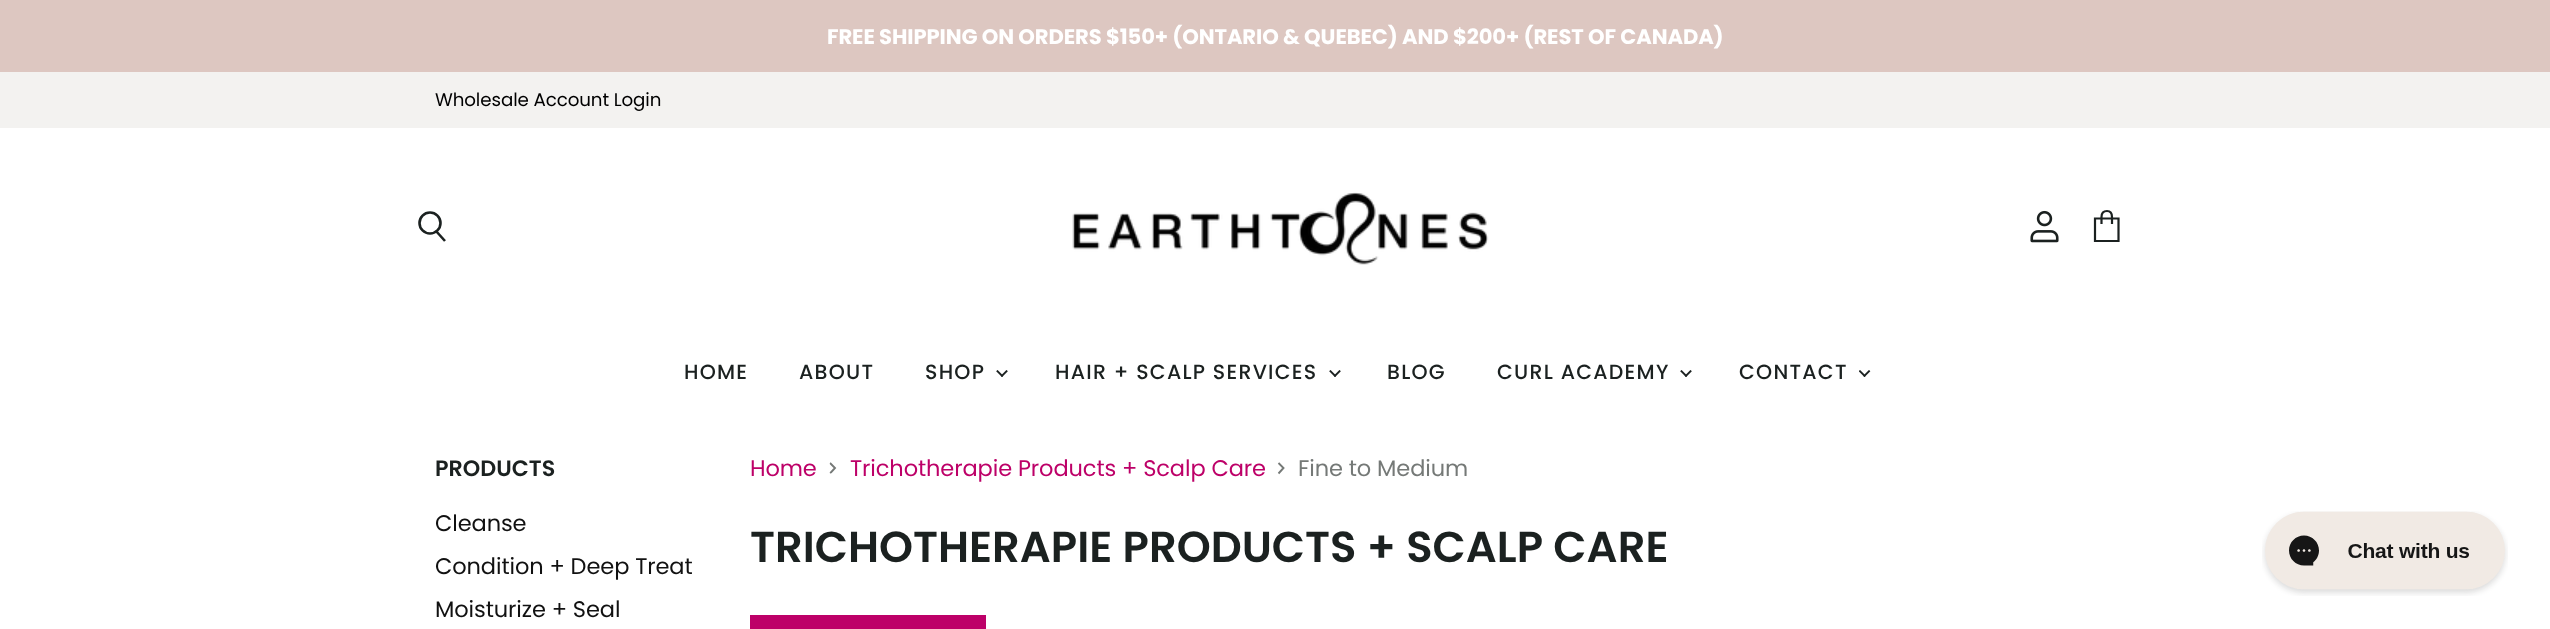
async function draw(canvas) {
	canvas.width = 2550;
	canvas.height = 629;
	const c = canvas.getContext('2d');
	c.miterLimit = 4;
	c.fontKerning = 'normal';
	async function loadImage(src) {
		const img = new Image();
		img.src = src;
		await img.decode();
		return img;
	}

	c.fillStyle = '#fff';
	c.fillRect(0, 0, 2550, 629);
	c.fillStyle = '#ddc7c1';
	c.fillRect(0, 0, 2550, 72);
	c.letterSpacing = '-0.1px';
	c.font = 'bold 21.1px Poppins';
	c.fillStyle = '#fff';
	c.fillText('FREE SHIPPING ON ORDERS $150+ (ONTARIO & QUEBEC) AND $200+ (REST OF CANADA)', 827, 44);
	c.fillStyle = '#f3f2f0';
	c.fillRect(0, 72, 2550, 56);
	c.font = '18.25px Poppins';
	c.fillStyle = '#000';
	c.fillText('Wholesale Account Login', 435, 106);
	c.drawImage(await loadImage('img1.png'), 1072, 192, 417, 73);
	c.beginPath();
	c.moveTo(445, 241);
	c.lineTo(436, 231);
	c.strokeStyle = '#1b2120';
	c.lineWidth = 2.6;
	c.stroke();
	c.beginPath();
	c.arc(430, 223, 10.5, 0, 2 * Math.PI);
	c.stroke();
	c.drawImage(await loadImage('img2.png'), 2030, 210, 29, 33);
	c.beginPath();
	c.moveTo(2095, 218.5);
	c.lineTo(2118.5, 218.5);
	c.lineTo(2118.5, 241);
	c.lineTo(2095, 241);
	c.closePath();
	c.moveTo(2112, 224);
	c.lineTo(2112, 217);
	c.bezierCurveTo(2112, 212.5, 2109.5, 211, 2107, 211);
	c.bezierCurveTo(2104, 211, 2101.5, 212.5, 2101.5, 217);
	c.lineTo(2101.5, 224);
	c.lineWidth = 2.2;
	c.stroke();
	c.letterSpacing = '1.25px';
	c.font = '500 20.5px Poppins';
	c.fillStyle = '#1b2120';
	for (const [text, x, y] of [
		['HOME', 684, 379],
		['ABOUT', 799, 379],
		['SHOP', 925, 379],
	]) {
		c.fillText(text, x, y);
	}
	c.drawImage(await loadImage('img3.png'), 996, 370, 12, 7);
	c.fillText('HAIR + SCALP SERVICES', 1055, 379);
	c.drawImage(await loadImage('img3.png'), 1329, 370, 12, 7);
	c.fillText('BLOG', 1387, 379);
	c.fillText('CURL ACADEMY', 1497, 379);
	c.drawImage(await loadImage('img3.png'), 1680, 370, 12, 7);
	c.fillText('CONTACT', 1739, 379);
	c.drawImage(await loadImage('img4.png'), 1859, 370, 12, 7);
	c.letterSpacing = '0px';
	c.font = '600 22.25px Poppins';
	c.fillText('PRODUCTS', 435, 476);
	c.letterSpacing = '-0.1px';
	c.font = '22.5px Poppins';
	c.fillStyle = '#111';
	for (const [text, x, y] of [
		['Cleanse', 435, 531],
		['Condition + Deep Treat', 435, 574],
		['Moisturize + Seal', 435, 617],
	]) {
		c.fillText(text, x, y);
	}
	c.fillStyle = '#bd0068';
	c.fillText('Home', 750, 476);
	c.save();
	c.beginPath();
	c.moveTo(829.5, 473.5);
	c.lineTo(829.5, 461.5);
	c.lineTo(837, 461.5);
	c.lineTo(837, 473.5);
	c.closePath();
	c.clip();
	c.beginPath();
	c.moveTo(830, 473.5);
	c.lineTo(835, 468);
	c.lineTo(830, 463);
	c.strokeStyle = '#757977';
	c.lineWidth = 1.9;
	c.stroke();
	c.restore();
	c.fillText('Trichotherapie Products + Scalp Care', 850, 476);
	c.beginPath();
	c.moveTo(1278.5, 473.5);
	c.lineTo(1283.5, 468);
	c.lineTo(1278.5, 463);
	c.strokeStyle = '#757977';
	c.lineWidth = 1.9;
	c.stroke();
	c.fillStyle = '#757977';
	c.fillText('Fine to Medium', 1298, 476);
	c.letterSpacing = '0px';
	c.font = '600 43.3px Poppins';
	c.fillStyle = '#1b2120';
	c.fillText('TRICHOTHERAPIE PRODUCTS + SCALP CARE', 750, 562);
	c.fillStyle = '#bd0068';
	c.fillRect(750, 615, 236, 14);
	c.drawImage(await loadImage('img5.png'), 2262, 511, 246, 85);
}

draw(document.querySelector('canvas'));
